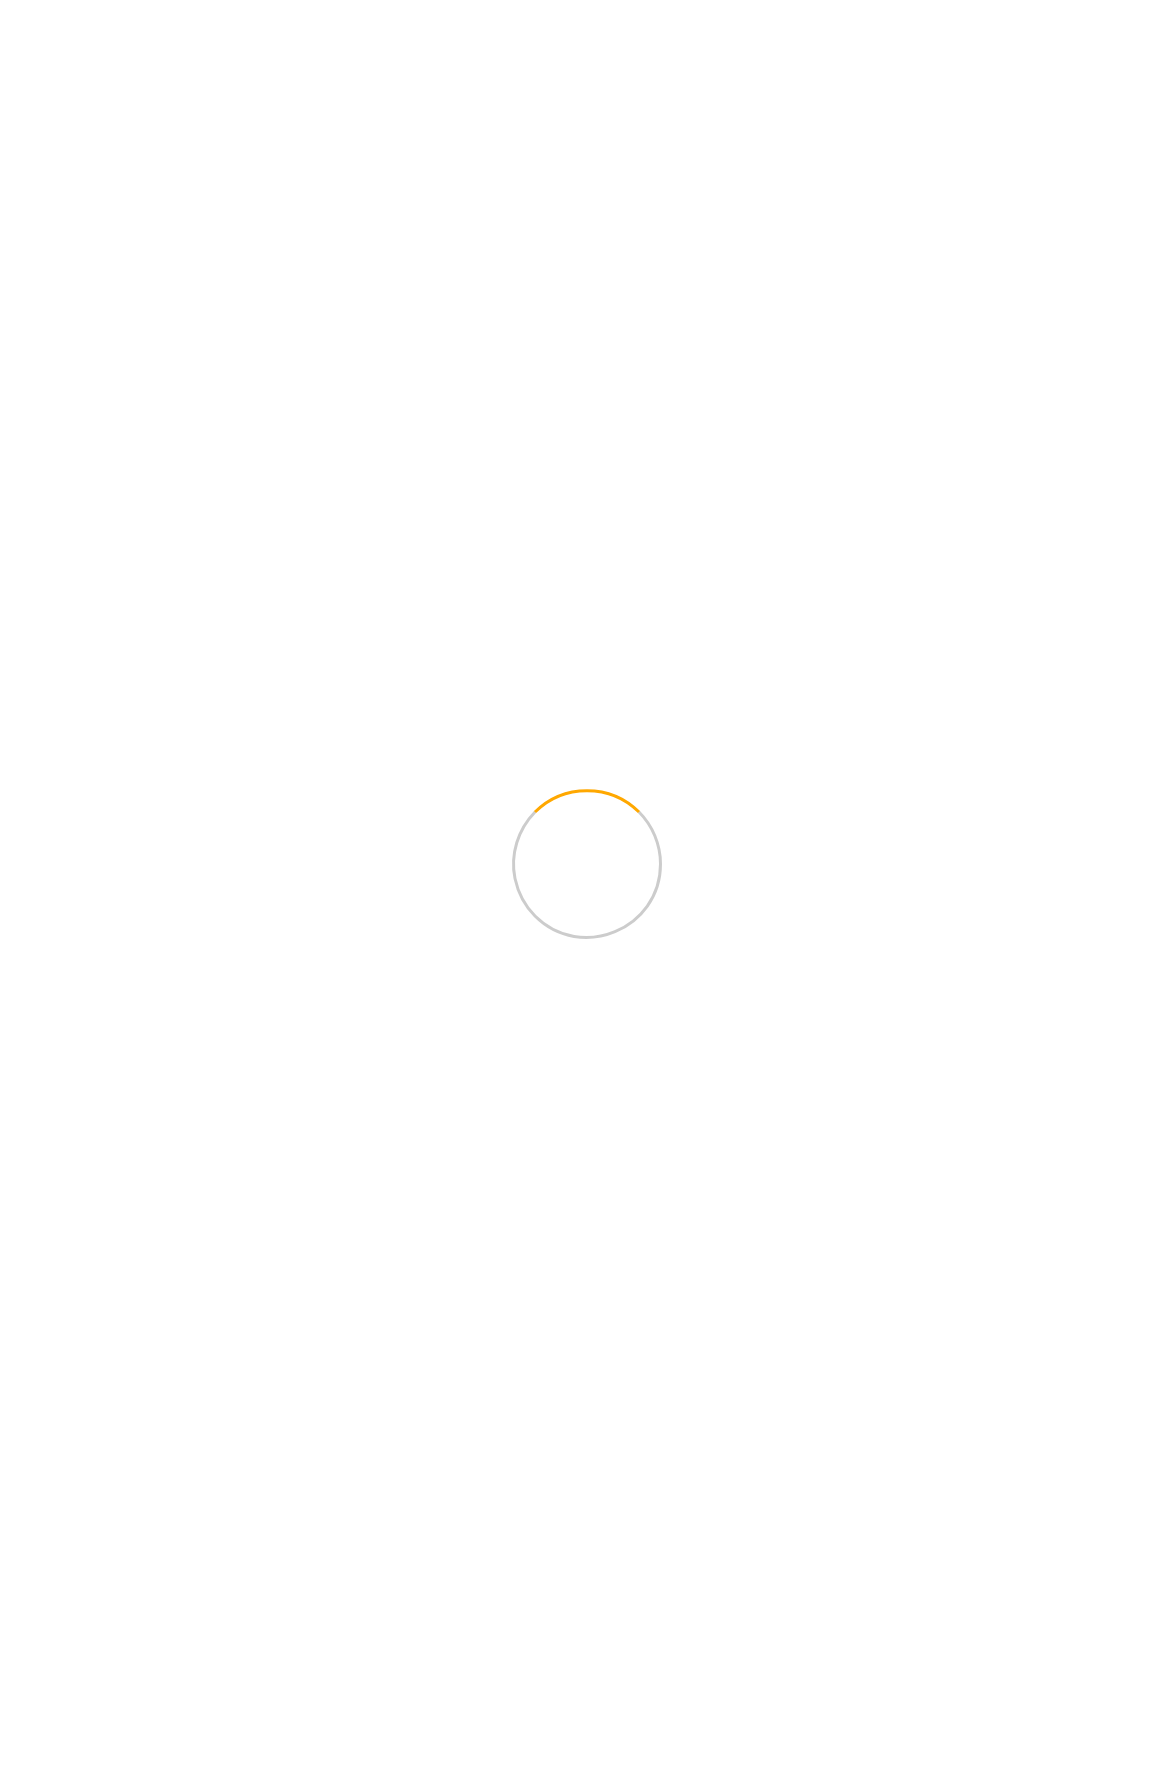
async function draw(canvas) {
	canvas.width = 1173;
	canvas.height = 1784;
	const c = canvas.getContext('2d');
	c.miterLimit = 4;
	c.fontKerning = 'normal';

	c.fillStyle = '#fff';
	c.fillRect(0, 0, 1173, 1784);
	c.beginPath();
	c.moveTo(535, 812);
	c.bezierCurveTo(563.5, 783.5, 610.5, 783.5, 639, 812);
	c.strokeStyle = '#ffa800';
	c.lineWidth = 3;
	c.stroke();
	c.beginPath();
	c.moveTo(639, 812);
	c.bezierCurveTo(652.5, 825.5, 660.5, 844.5, 660.5, 864);
	c.bezierCurveTo(660.5, 929, 581, 962, 535, 916);
	c.bezierCurveTo(525, 906, 518, 892.5, 515, 878.5);
	c.bezierCurveTo(510, 854.5, 518, 829.5, 535, 812);
	c.strokeStyle = '#00000033';
	c.stroke();
}

draw(document.querySelector('canvas'));
